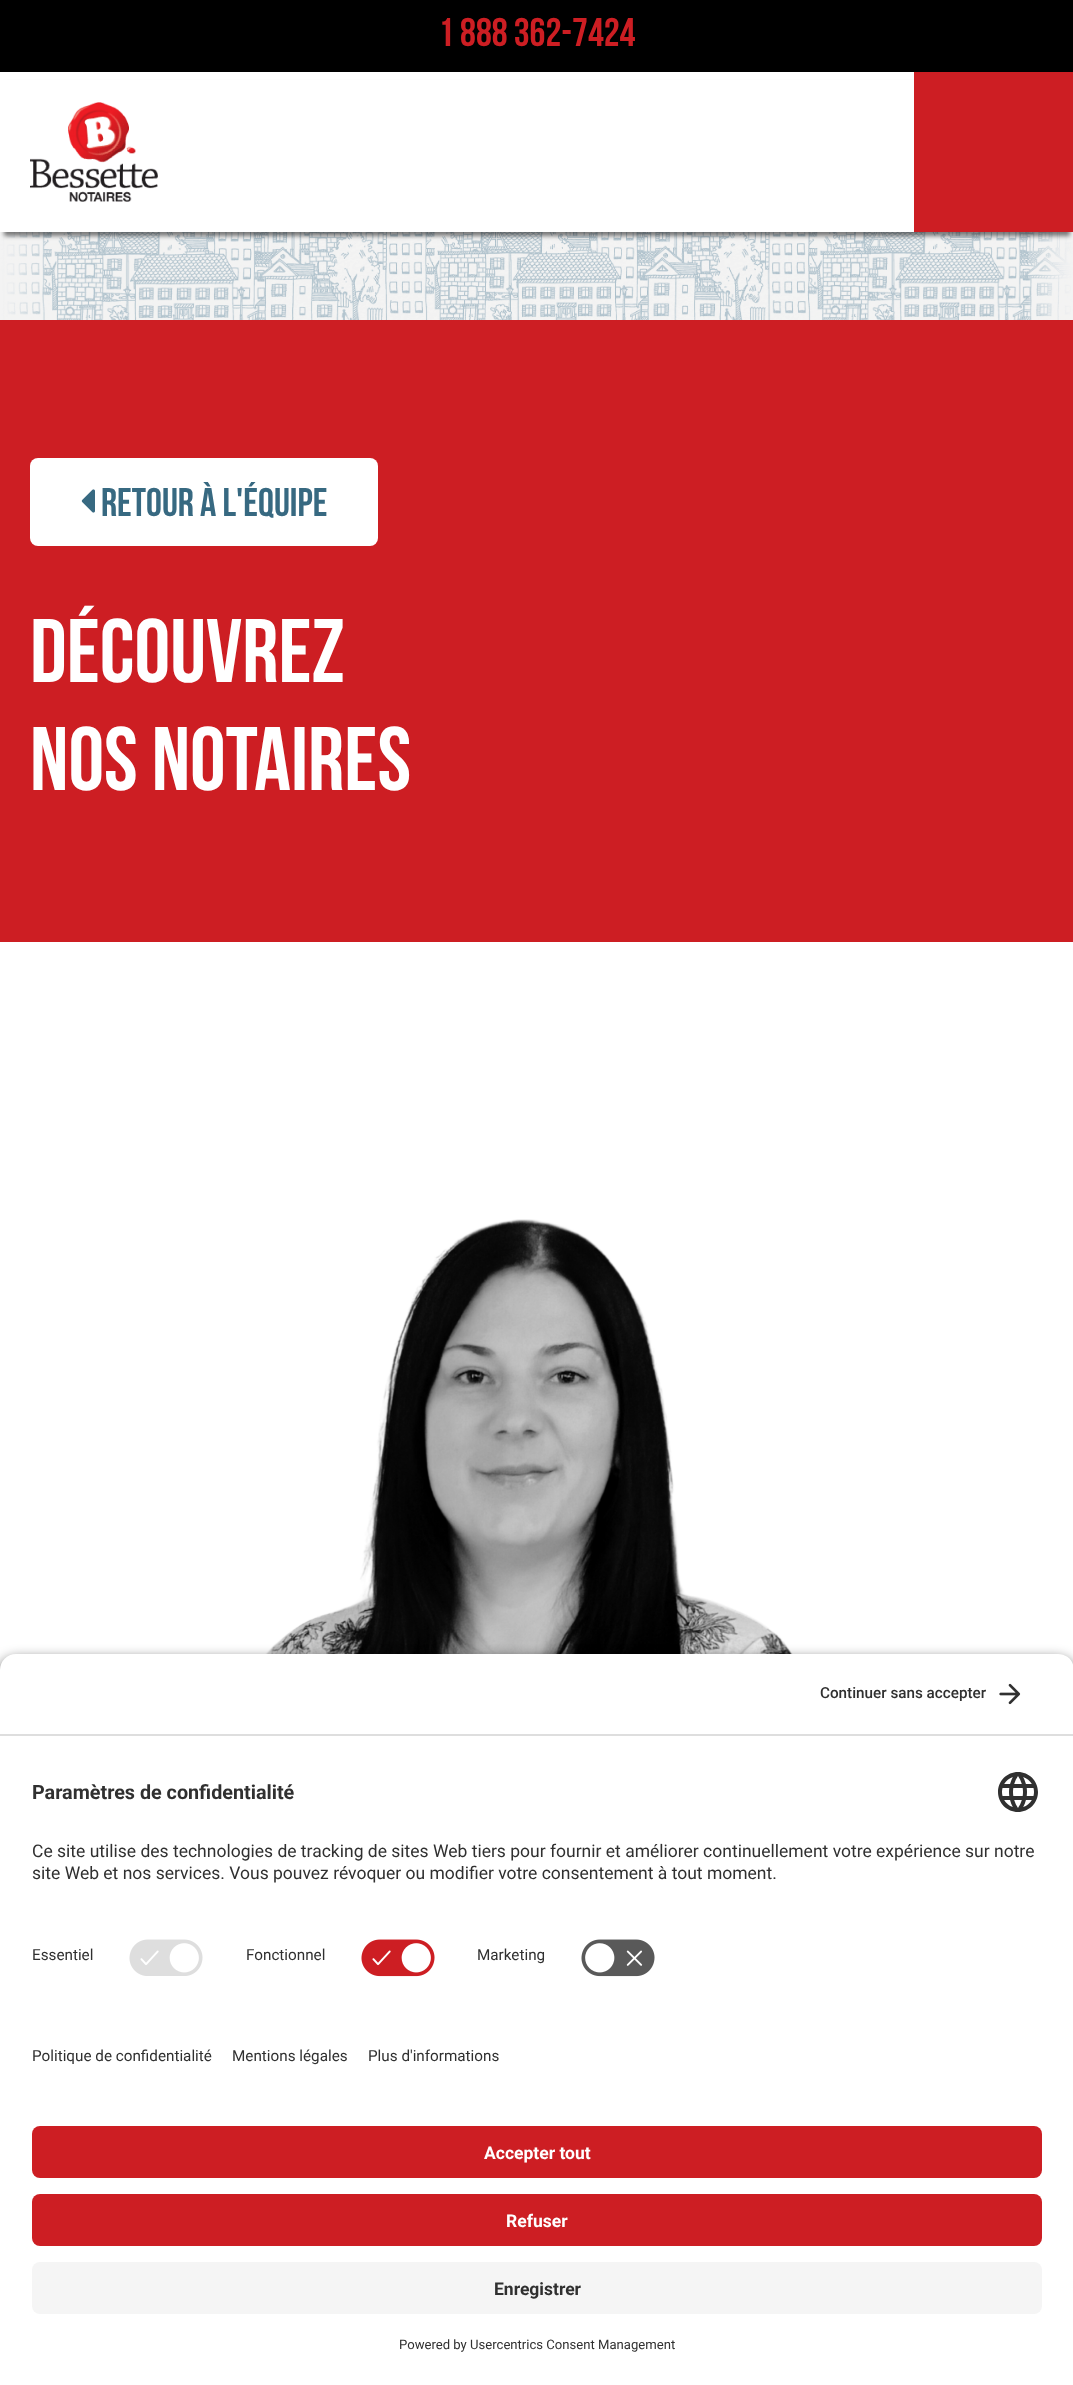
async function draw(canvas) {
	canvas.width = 1073;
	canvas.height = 2385;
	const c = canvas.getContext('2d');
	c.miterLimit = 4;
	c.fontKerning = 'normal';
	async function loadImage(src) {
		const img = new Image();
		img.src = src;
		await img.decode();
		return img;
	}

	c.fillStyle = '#fff';
	c.fillRect(0, 0, 1073, 2385);
	c.drawImage(await loadImage('img2.png'), 0, 232, 1073, 88);
	c.fillStyle = '#00000080';
	c.filter = 'blur(2px)';
	c.beginPath();
	c.rect(4, 84, 1066, 152);
	c.fill();
	c.filter = 'none';
	c.fillStyle = '#fff';
	c.fillRect(0, 80, 914, 152);
	c.fillStyle = '#000';
	c.fillRect(0, 0, 1073, 72);
	c.font = 'bold 40px Bebas Neue';
	c.fillStyle = '#cd1e23';
	c.fillText('1 888 362-7424', 438, 46);
	c.drawImage(await loadImage('img1.png'), 30, 102, 128, 100);
	c.fillRect(914, 72, 159, 160);
	c.fillRect(0, 320, 1073, 622);
	c.fillStyle = '#fff';
	c.beginPath();
	c.roundRect(30, 458, 348, 88, 8);
	c.fill();
	c.drawImage(await loadImage('img3.png'), 81, 489, 14, 24);
	c.fillStyle = '#376981';
	c.fillText('RETOUR À L\'ÉQUIPE', 101, 516);
	c.font = 'bold 90px Bebas Neue';
	c.fillStyle = '#fff';
	c.fillText('DÉCOUVREZ', 30, 682);
	c.fillText('NOS NOTAIRES', 30, 790);
	c.drawImage(await loadImage('img4.png'), 166, 1219, 755, 435);
	c.fillStyle = '#000000cc';
	c.filter = 'blur(7px)';
	c.beginPath();
	c.roundRect(0, 1660, 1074, 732, 16);
	c.fill();
	c.filter = 'none';
	c.fillStyle = '#fff';
	c.beginPath();
	c.moveTo(16, 1654);
	c.lineTo(1058, 1654);
	c.bezierCurveTo(1067, 1654, 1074, 1661, 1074, 1670);
	c.lineTo(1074, 1736);
	c.lineTo(0, 1736);
	c.lineTo(0, 1670);
	c.bezierCurveTo(0, 1661, 7, 1654, 16, 1654);
	c.closePath();
	c.fill();
	c.fillStyle = '#dedede';
	c.fillRect(0, 1734, 1073, 2);
	c.font = '500 15.25px Roboto';
	c.fillStyle = '#303030';
	c.fillText('Continuer sans accepter', 820, 1698);
	c.drawImage(await loadImage('img5.png'), 999, 1683, 22, 22);
	c.fillStyle = '#fff';
	c.fillRect(0, 1736, 1073, 649);
	c.font = 'bold 19.75px Roboto';
	c.fillStyle = '#303030';
	c.fillText('Paramètres de confidentialité', 32, 1799);
	c.drawImage(await loadImage('img6.png'), 998, 1772, 40, 40);
	c.font = '17.5px Roboto';
	c.fillText('Ce site utilise des technologies de tracking de sites Web tiers pour fournir et améliorer continuellement votre expérience sur notre', 32, 1857);
	c.fillText('site Web et nos services. Vous pouvez révoquer ou modifier votre consentement à tout moment.', 32, 1879);
	c.font = '15.25px Roboto';
	c.fillText('Essentiel', 32, 1960);
	c.drawImage(await loadImage('img7.png'), 129, 1939, 74, 37);
	c.fillText('Fonctionnel', 246, 1960);
	c.drawImage(await loadImage('img8.png'), 361, 1939, 74, 38);
	c.fillText('Marketing', 477, 1960);
	c.drawImage(await loadImage('img9.png'), 581, 1939, 74, 38);
	for (const [text, x, y] of [
		['Politique de confidentialité', 32, 2061],
		['Mentions légales', 232, 2061],
		['Plus d\'informations', 368, 2061],
	]) {
		c.fillText(text, x, y);
	}
	c.fillStyle = '#cd1e23';
	c.beginPath();
	c.roundRect(32, 2126, 1010, 52, 8);
	c.fill();
	c.font = 'bold 17.5px Roboto';
	c.fillStyle = '#fff';
	c.fillText('Accepter tout', 484, 2159);
	c.fillStyle = '#cd1e23';
	c.beginPath();
	c.roundRect(32, 2194, 1010, 52, 8);
	c.fill();
	c.fillStyle = '#fff';
	c.fillText('Refuser', 506, 2227);
	c.fillStyle = '#f5f5f5';
	c.beginPath();
	c.roundRect(32, 2262, 1010, 52, 8);
	c.fill();
	c.fillStyle = '#303030';
	c.fillText('Enregistrer', 494, 2295);
	c.font = '13.1px Roboto';
	c.fillText('Powered by Usercentrics Consent Management', 399, 2349);
}

draw(document.querySelector('canvas'));
